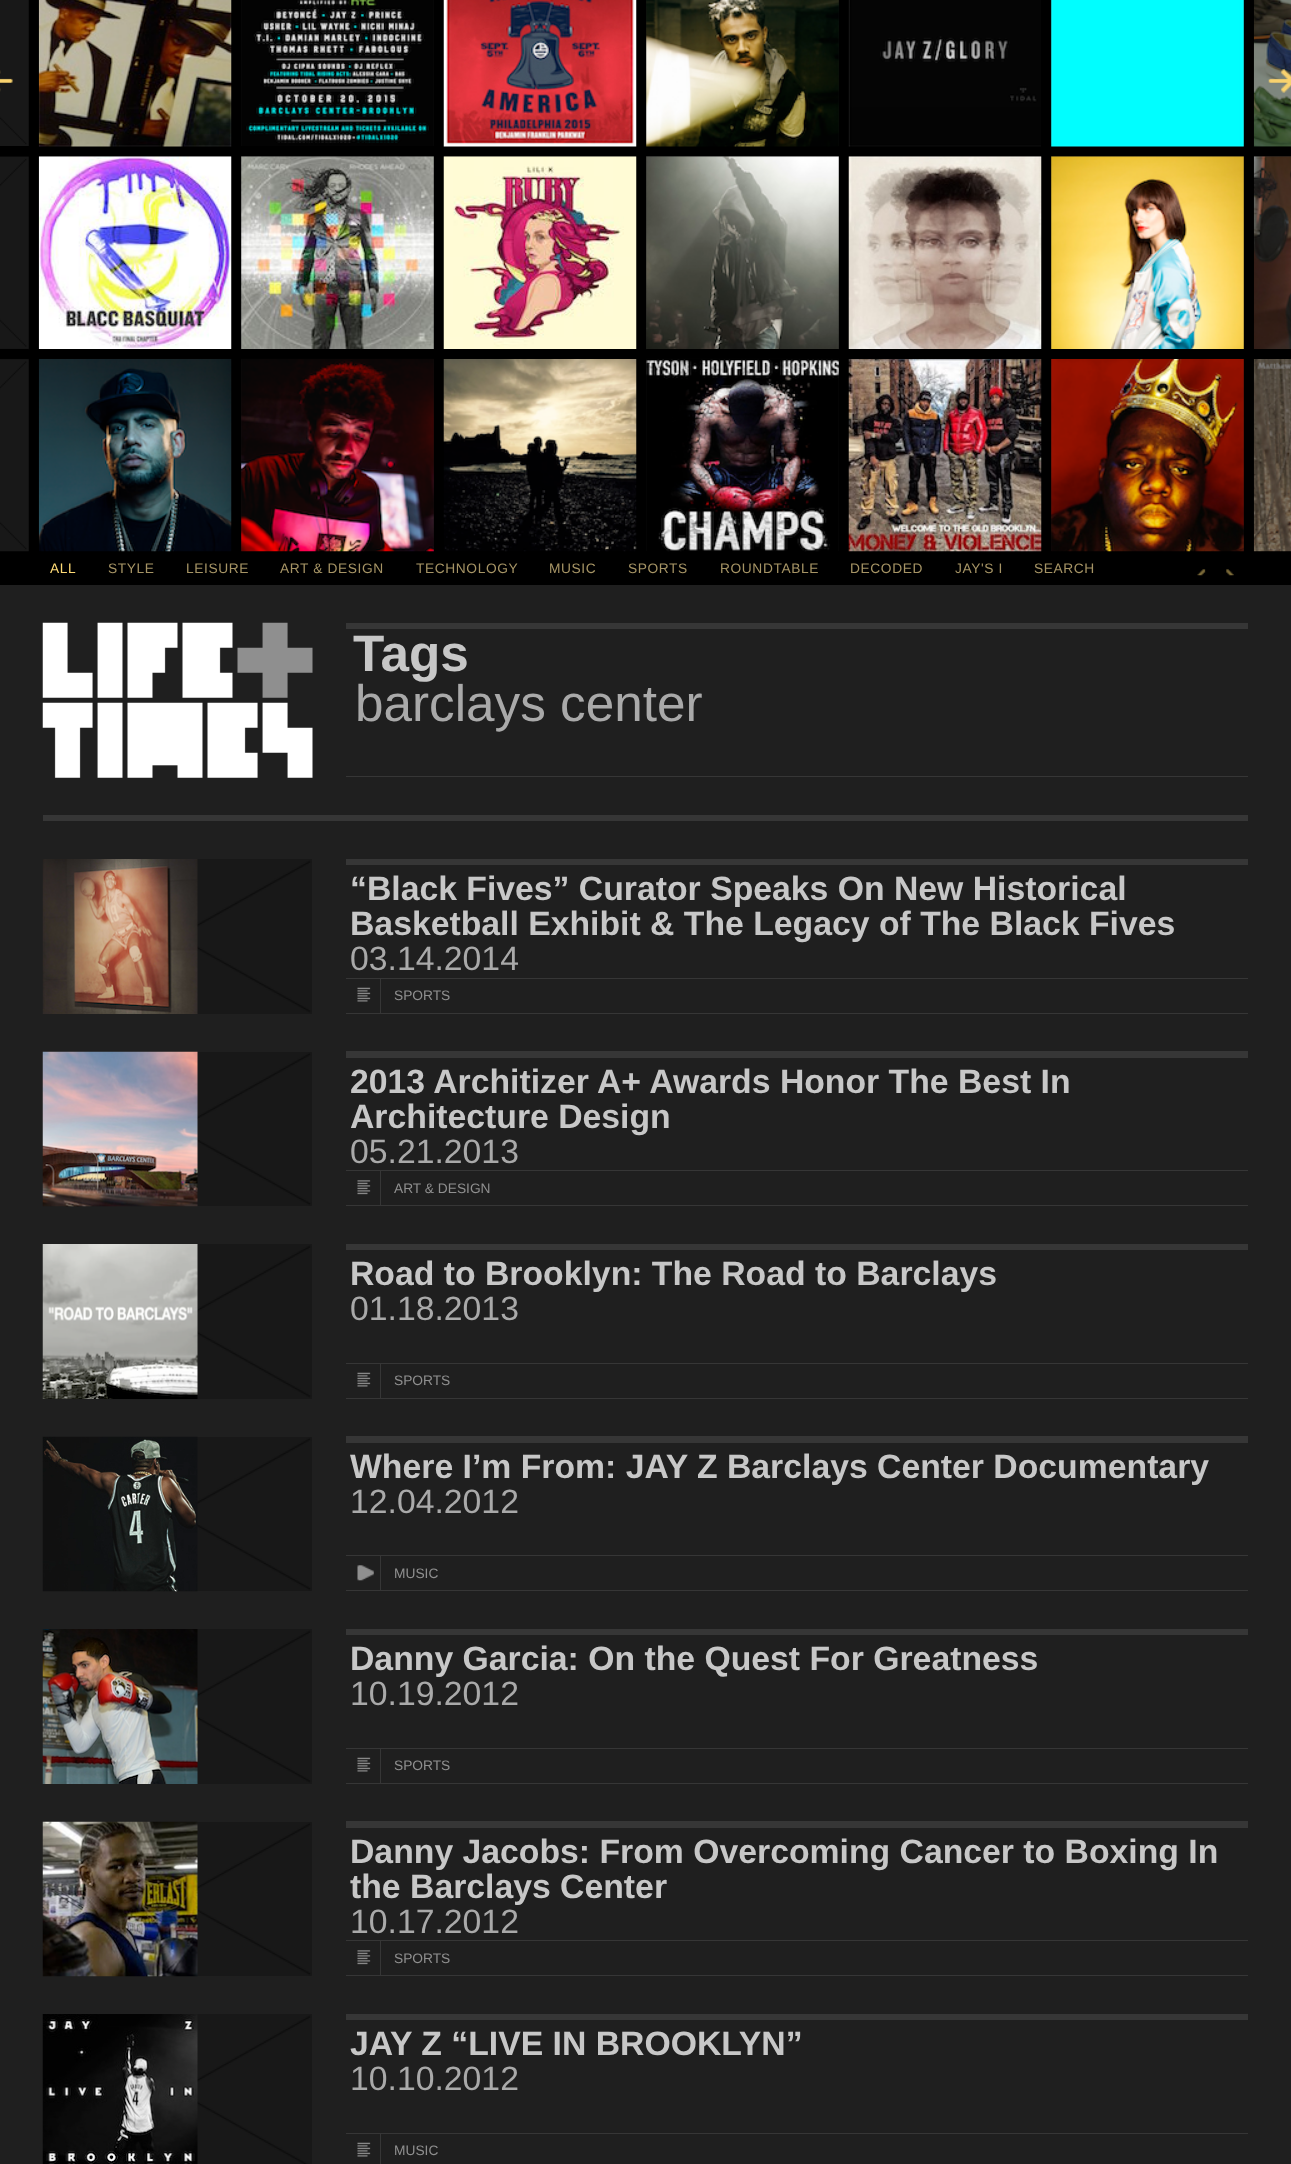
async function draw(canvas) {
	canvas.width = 1291;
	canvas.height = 2164;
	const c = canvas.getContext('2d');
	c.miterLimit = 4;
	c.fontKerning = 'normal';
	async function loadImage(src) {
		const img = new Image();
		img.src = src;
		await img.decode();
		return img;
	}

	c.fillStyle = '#1f1f1f';
	c.fillRect(0, 0, 1291, 2164);
	c.drawImage(await loadImage('img1.png'), 0, 0, 1244, 551);
	for (const [x, y, w, h, color] of [
		[0, 146, 29, 1, '#000'],
		[38, 0, 1, 349, '#000'],
		[0, 551, 1291, 34, '#000'],
	]) {
		c.fillStyle = color;
		c.fillRect(x, y, w, h);
	}
	c.drawImage(await loadImage('img2.png'), 0, 551, 29, 1);
	for (const [x, y, w, h, color] of [
		[0, 349, 28, 1, '#000'],
		[38, 359, 1, 192, '#000'],
		[231, 0, 1, 349, '#000'],
		[39, 146, 192, 1, '#000'],
	]) {
		c.fillStyle = color;
		c.fillRect(x, y, w, h);
	}
	c.drawImage(await loadImage('img3.png'), 38, 0, 194, 147);
	c.fillRect(443, 0, 1, 349);
	c.drawImage(await loadImage('img4.png'), 241, 0, 193, 146);
	c.fillRect(636, 0, 1, 349);
	c.fillRect(444, 146, 192, 1);
	c.drawImage(await loadImage('img5.png'), 443, 0, 194, 147);
	c.fillRect(848, 0, 1, 349);
	c.fillRect(646, 146, 193, 1);
	c.drawImage(await loadImage('img6.png'), 646, 0, 193, 147);
	c.fillRect(1041, 0, 1, 349);
	c.fillRect(849, 146, 192, 1);
	c.drawImage(await loadImage('img7.png'), 848, 0, 193, 147);
	c.fillRect(1244, 0, 10, 551);
	c.fillRect(1051, 146, 193, 1);
	c.drawImage(await loadImage('img8.png'), 1051, 0, 193, 147);
	c.fillStyle = '#181818';
	c.fillRect(39, 156, 192, 1);
	c.drawImage(await loadImage('img9.png'), 38, 156, 194, 193);
	c.fillRect(241, 156, 193, 193);
	c.fillStyle = '#000';
	c.fillRect(241, 146, 193, 1);
	c.drawImage(await loadImage('img10.png'), 241, 156, 193, 193);
	c.fillStyle = '#181818';
	c.fillRect(444, 156, 192, 1);
	c.drawImage(await loadImage('img11.png'), 443, 156, 194, 193);
	c.fillRect(646, 156, 193, 193);
	c.drawImage(await loadImage('img12.png'), 646, 156, 193, 193);
	c.fillRect(849, 156, 192, 1);
	c.drawImage(await loadImage('img13.png'), 848, 156, 194, 193);
	c.fillRect(1051, 156, 193, 193);
	c.drawImage(await loadImage('img14.png'), 1051, 156, 193, 193);
	c.fillStyle = '#000';
	c.fillRect(39, 349, 192, 1);
	c.fillRect(231, 359, 1, 192);
	c.drawImage(await loadImage('img15.png'), 38, 359, 194, 193);
	c.fillRect(242, 349, 191, 1);
	c.fillRect(443, 359, 1, 192);
	c.drawImage(await loadImage('img16.png'), 241, 359, 193, 193);
	c.fillRect(444, 349, 192, 1);
	c.fillRect(636, 359, 1, 192);
	c.drawImage(await loadImage('img17.png'), 443, 359, 194, 193);
	c.fillRect(647, 349, 191, 1);
	c.fillRect(848, 359, 1, 192);
	c.drawImage(await loadImage('img18.png'), 646, 359, 193, 193);
	c.fillRect(849, 349, 192, 1);
	c.fillRect(1041, 359, 1, 192);
	c.drawImage(await loadImage('img19.png'), 848, 359, 194, 193);
	c.fillRect(1052, 349, 191, 1);
	c.drawImage(await loadImage('img20.png'), 1051, 359, 193, 193);
	c.fillStyle = '#181818';
	c.fillRect(1254, 0, 37, 146);
	c.fillStyle = '#000';
	c.fillRect(1254, 146, 37, 10);
	c.drawImage(await loadImage('img21.png'), 1253, 0, 38, 147);
	c.fillStyle = '#181818';
	c.fillRect(1254, 156, 37, 193);
	c.drawImage(await loadImage('img22.png'), 1253, 156, 38, 193);
	c.fillRect(1254, 359, 37, 192);
	c.fillStyle = '#000';
	c.fillRect(1254, 349, 37, 10);
	c.drawImage(await loadImage('img23.png'), 1253, 359, 38, 193);
	c.drawImage(await loadImage('img24.png'), 0, 70, 13, 22);
	c.drawImage(await loadImage('img25.png'), 1268, 69, 23, 24);
	c.letterSpacing = '0.6px';
	c.font = '13.75px Liberation Sans';
	c.fillStyle = '#ffdb76';
	c.fillText('ALL', 50, 573);
	c.fillStyle = '#a69465';
	for (const [text, x, y] of [
		['STYLE', 108, 573],
		['LEISURE', 186, 573],
		['ART & DESIGN', 280, 573],
		['TECHNOLOGY', 416, 573],
		['MUSIC', 549, 573],
		['SPORTS', 628, 573],
		['ROUNDTABLE', 720, 573],
		['DECODED', 850, 573],
		['JAY\'S I', 955, 573],
		['SEARCH', 1034, 573],
	]) {
		c.fillText(text, x, y);
	}
	c.drawImage(await loadImage('img26.png'), 1197, 569, 9, 7);
	c.drawImage(await loadImage('img27.png'), 1226, 569, 8, 7);
	c.drawImage(await loadImage('img28.png'), 42, 622, 271, 156);
	c.fillStyle = '#363636';
	c.fillRect(346, 623, 902, 6);
	c.fillRect(346, 776, 902, 1);
	c.letterSpacing = '0px';
	c.font = 'bold 51.25px Liberation Sans';
	c.fillStyle = '#c7c7c7';
	c.fillText('Tags', 353, 671);
	c.font = '51.25px Liberation Sans';
	c.fillStyle = '#a9a9a9';
	c.fillText('barclays center', 355, 721);
	c.fillStyle = '#363636';
	c.fillRect(43, 815, 1205, 6);
	c.drawImage(await loadImage('img29.png'), 197, 859, 115, 155);
	c.drawImage(await loadImage('img30.png'), 42, 859, 156, 155);
	c.fillRect(346, 859, 902, 6);
	c.font = 'bold 33.75px Liberation Sans';
	c.fillStyle = '#c7c7c7';
	c.fillText('“Black Fives” Curator Speaks On New Historical', 350, 900);
	c.fillText('Basketball Exhibit & The Legacy of The Black Fives', 350, 935);
	c.font = '33.75px Liberation Sans';
	c.fillStyle = '#a9a9a9';
	c.fillText('03.14.2014', 350, 970);
	c.fillStyle = '#363636';
	c.fillRect(346, 978, 902, 1);
	c.fillRect(346, 1013, 902, 1);
	c.drawImage(await loadImage('img31.png'), 357, 987, 14, 15);
	c.fillRect(380, 979, 1, 34);
	c.font = '13.75px Liberation Sans';
	c.fillStyle = '#8f8f8f';
	c.fillText('SPORTS', 394, 1000);
	c.drawImage(await loadImage('img32.png'), 197, 1052, 115, 154);
	c.drawImage(await loadImage('img33.png'), 42, 1051, 156, 156);
	c.fillStyle = '#363636';
	c.fillRect(346, 1051, 902, 7);
	c.font = 'bold 33.75px Liberation Sans';
	c.fillStyle = '#c7c7c7';
	c.fillText('2013 Architizer A+ Awards Honor The Best In', 350, 1093);
	c.fillText('Architecture Design', 350, 1128);
	c.font = '33.75px Liberation Sans';
	c.fillStyle = '#a9a9a9';
	c.fillText('05.21.2013', 350, 1163);
	c.fillStyle = '#363636';
	c.fillRect(346, 1170, 902, 1);
	c.fillRect(346, 1205, 902, 1);
	c.drawImage(await loadImage('img34.png'), 357, 1180, 14, 15);
	c.fillRect(380, 1171, 1, 34);
	c.font = '13.75px Liberation Sans';
	c.fillStyle = '#8f8f8f';
	c.fillText('ART & DESIGN', 394, 1193);
	c.drawImage(await loadImage('img29.png'), 197, 1244, 115, 155);
	c.drawImage(await loadImage('img35.png'), 42, 1244, 156, 155);
	c.fillStyle = '#363636';
	c.fillRect(346, 1244, 902, 6);
	c.font = 'bold 33.75px Liberation Sans';
	c.fillStyle = '#c7c7c7';
	c.fillText('Road to Brooklyn: The Road to Barclays', 350, 1285);
	c.font = '33.75px Liberation Sans';
	c.fillStyle = '#a9a9a9';
	c.fillText('01.18.2013', 350, 1320);
	c.fillStyle = '#363636';
	c.fillRect(346, 1363, 902, 1);
	c.fillRect(346, 1398, 902, 1);
	c.drawImage(await loadImage('img31.png'), 357, 1372, 14, 15);
	c.fillRect(380, 1364, 1, 34);
	c.font = '13.75px Liberation Sans';
	c.fillStyle = '#8f8f8f';
	c.fillText('SPORTS', 394, 1385);
	c.drawImage(await loadImage('img36.png'), 197, 1437, 115, 154);
	c.drawImage(await loadImage('img37.png'), 42, 1436, 156, 156);
	c.fillStyle = '#363636';
	c.fillRect(346, 1436, 902, 7);
	c.font = 'bold 33.75px Liberation Sans';
	c.fillStyle = '#c7c7c7';
	c.fillText('Where I’m From: JAY Z Barclays Center Documentary', 350, 1478);
	c.font = '33.75px Liberation Sans';
	c.fillStyle = '#a9a9a9';
	c.fillText('12.04.2012', 350, 1513);
	c.fillStyle = '#363636';
	c.fillRect(346, 1555, 902, 1);
	c.fillRect(346, 1590, 902, 1);
	c.drawImage(await loadImage('img38.png'), 357, 1565, 17, 16);
	c.fillRect(380, 1556, 1, 34);
	c.font = '13.75px Liberation Sans';
	c.fillStyle = '#8f8f8f';
	c.fillText('MUSIC', 394, 1578);
	c.drawImage(await loadImage('img29.png'), 197, 1629, 115, 155);
	c.drawImage(await loadImage('img39.png'), 42, 1629, 156, 155);
	c.fillStyle = '#363636';
	c.fillRect(346, 1629, 902, 6);
	c.font = 'bold 33.75px Liberation Sans';
	c.fillStyle = '#c7c7c7';
	c.fillText('Danny Garcia: On the Quest For Greatness', 350, 1670);
	c.font = '33.75px Liberation Sans';
	c.fillStyle = '#a9a9a9';
	c.fillText('10.19.2012', 350, 1705);
	c.fillStyle = '#363636';
	c.fillRect(346, 1748, 902, 1);
	c.fillRect(346, 1783, 902, 1);
	c.drawImage(await loadImage('img31.png'), 357, 1757, 14, 15);
	c.fillRect(380, 1749, 1, 34);
	c.font = '13.75px Liberation Sans';
	c.fillStyle = '#8f8f8f';
	c.fillText('SPORTS', 394, 1770);
	c.drawImage(await loadImage('img36.png'), 197, 1822, 115, 154);
	c.drawImage(await loadImage('img40.png'), 42, 1821, 156, 156);
	c.fillStyle = '#363636';
	c.fillRect(346, 1821, 902, 7);
	c.font = 'bold 33.75px Liberation Sans';
	c.fillStyle = '#c7c7c7';
	c.fillText('Danny Jacobs: From Overcoming Cancer to Boxing In', 350, 1863);
	c.fillText('the Barclays Center', 350, 1898);
	c.font = '33.75px Liberation Sans';
	c.fillStyle = '#a9a9a9';
	c.fillText('10.17.2012', 350, 1933);
	c.fillStyle = '#363636';
	c.fillRect(346, 1940, 902, 1);
	c.fillRect(346, 1975, 902, 1);
	c.drawImage(await loadImage('img34.png'), 357, 1950, 14, 15);
	c.fillRect(380, 1941, 1, 34);
	c.font = '13.75px Liberation Sans';
	c.fillStyle = '#8f8f8f';
	c.fillText('SPORTS', 394, 1963);
	c.drawImage(await loadImage('img41.png'), 197, 2014, 115, 150);
	c.drawImage(await loadImage('img42.png'), 42, 2014, 156, 150);
	c.fillStyle = '#363636';
	c.fillRect(346, 2014, 902, 6);
	c.font = 'bold 33.75px Liberation Sans';
	c.fillStyle = '#c7c7c7';
	c.fillText('JAY Z “LIVE IN BROOKLYN”', 350, 2055);
	c.font = '33.75px Liberation Sans';
	c.fillStyle = '#a9a9a9';
	c.fillText('10.10.2012', 350, 2090);
	c.fillStyle = '#363636';
	c.fillRect(346, 2133, 902, 1);
	c.drawImage(await loadImage('img31.png'), 357, 2142, 14, 15);
	c.fillRect(380, 2134, 1, 30);
	c.font = '13.75px Liberation Sans';
	c.fillStyle = '#8f8f8f';
	c.fillText('MUSIC', 394, 2155);
}

draw(document.querySelector('canvas'));
